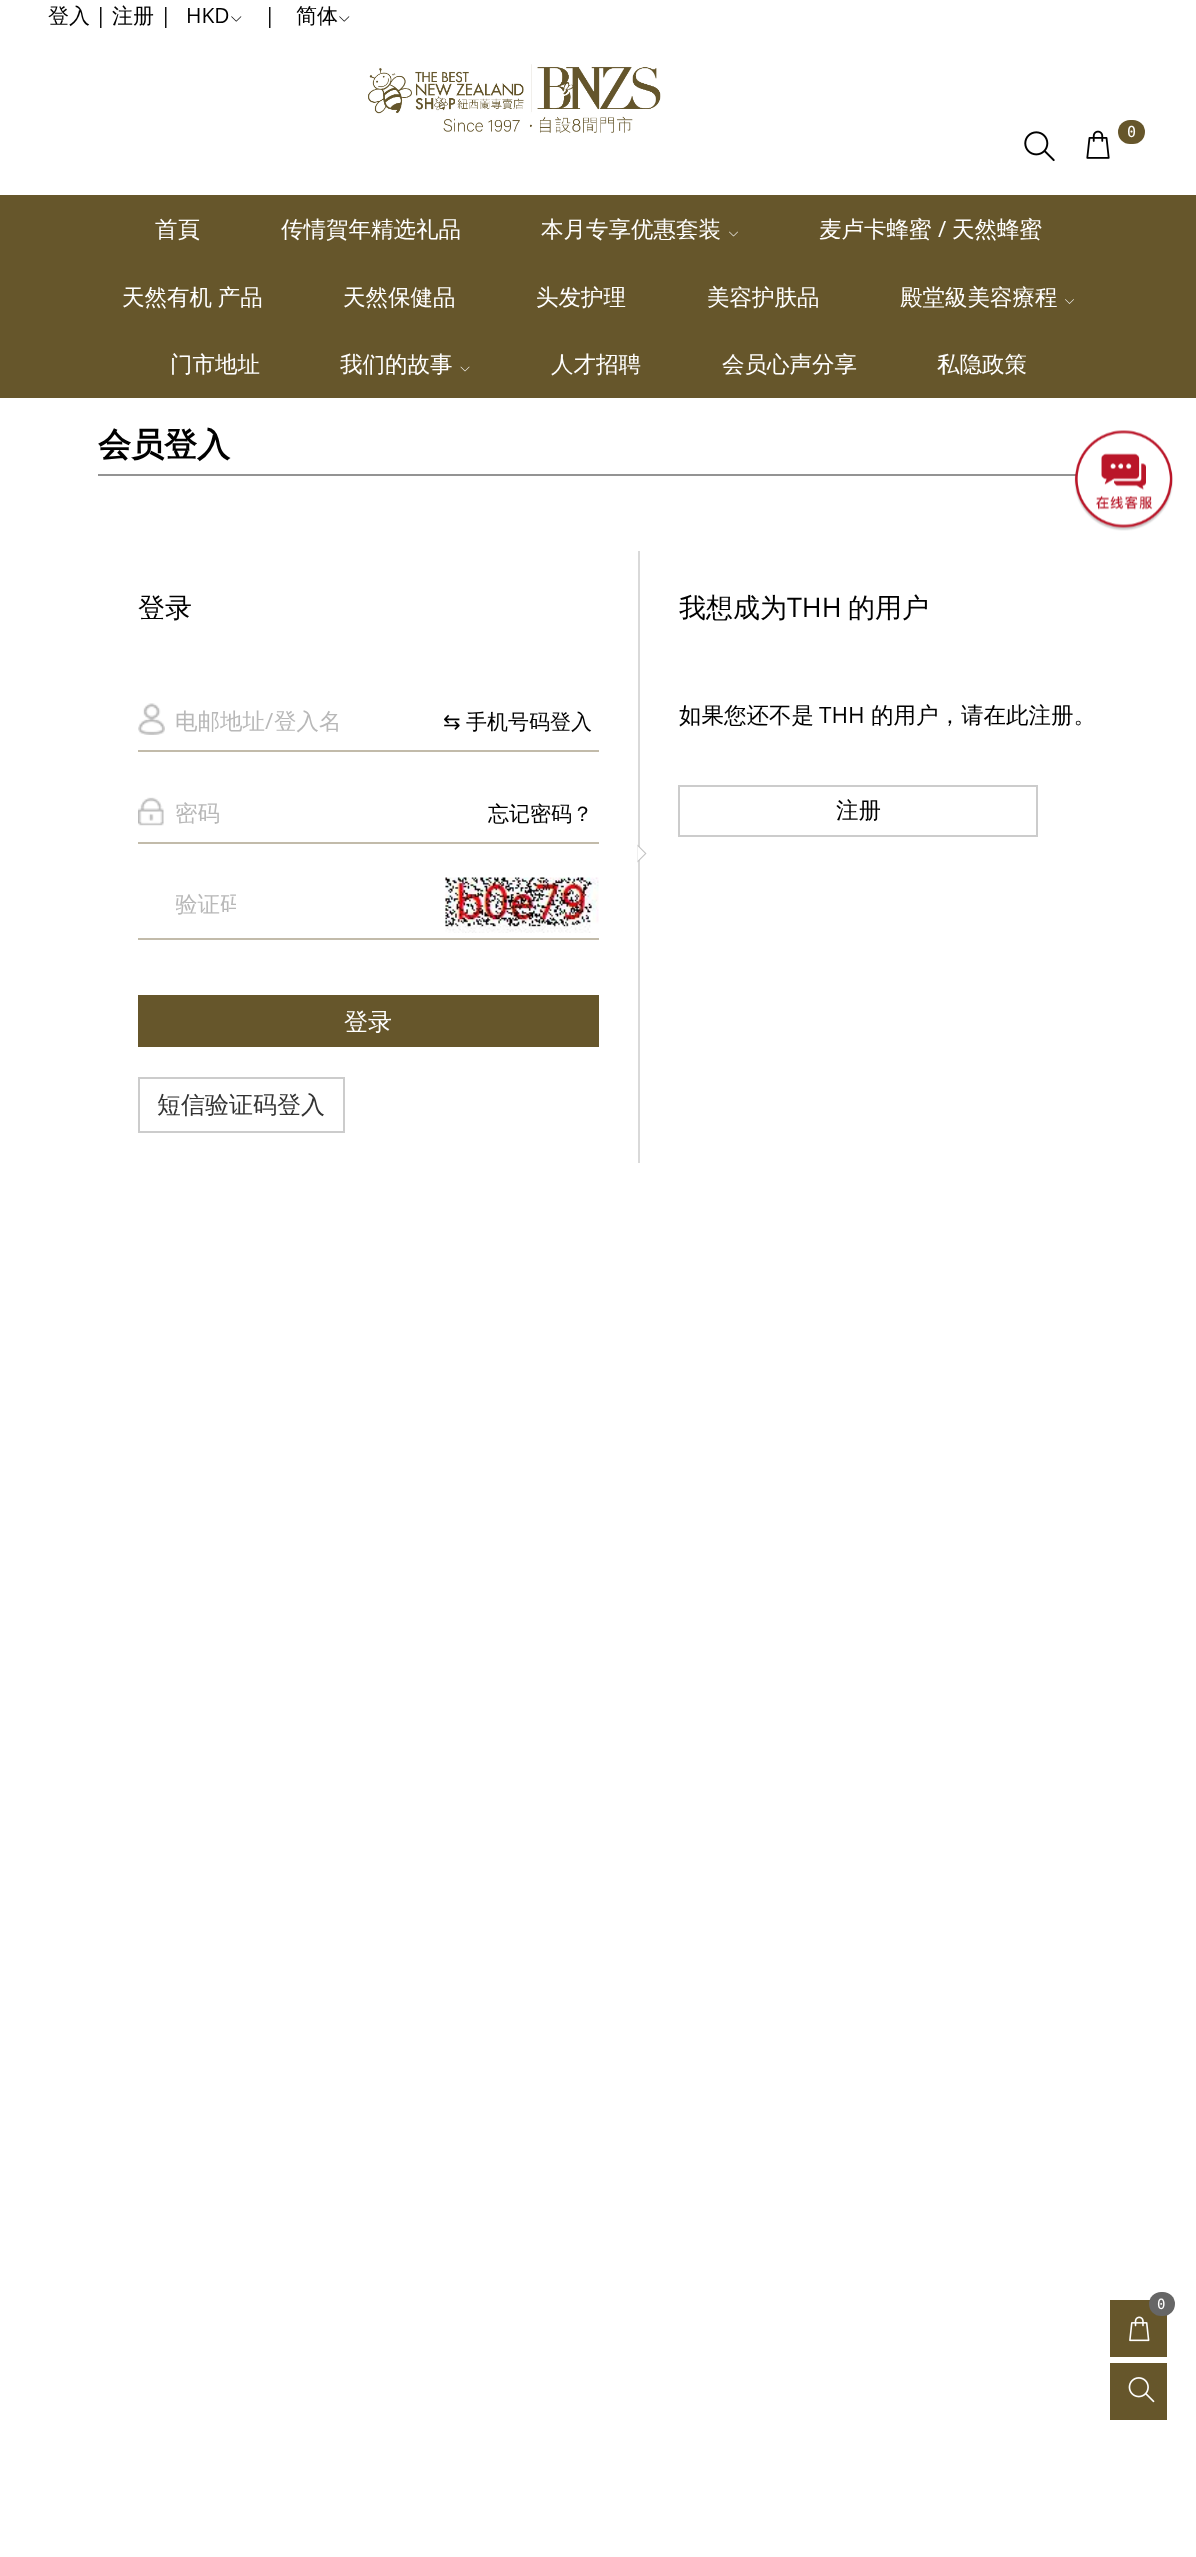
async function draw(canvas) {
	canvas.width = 1196;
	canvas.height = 2557;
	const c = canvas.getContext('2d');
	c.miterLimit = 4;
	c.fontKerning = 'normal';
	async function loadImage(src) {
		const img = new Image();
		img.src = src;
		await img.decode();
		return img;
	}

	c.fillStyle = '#fff';
	c.fillRect(0, 0, 1196, 2557);
	c.font = '500 21px WenQuanYi Zen Hei';
	c.fillStyle = '#000';
	c.fillText('登入', 48, 23);
	c.font = '21px Open Sans';
	c.fillText('|', 95, 23);
	c.font = '500 21px WenQuanYi Zen Hei';
	c.fillText('注册', 112, 23);
	c.font = '21px Open Sans';
	c.fillText('|', 160, 23);
	c.fillText('HKD', 186, 23);
	c.drawImage(await loadImage('img1.png'), 231, 16, 11, 6);
	c.fillText('|', 264, 23);
	c.font = '500 21px WenQuanYi Zen Hei';
	c.fillText('简体', 296, 23);
	c.drawImage(await loadImage('img1.png'), 339, 16, 11, 6);
	c.drawImage(await loadImage('img2.png'), 368, 64, 293, 69);
	c.drawImage(await loadImage('img3.png'), 1024, 131, 31, 31);
	c.drawImage(await loadImage('img4.png'), 1086, 130, 24, 29);
	c.fillStyle = '#66562b';
	c.beginPath();
	c.roundRect(1118, 120, 27, 24, 12);
	c.fill();
	c.font = '15px DejaVu Sans Mono';
	c.fillStyle = '#fff';
	c.fillText('0', 1127, 137);
	c.fillStyle = '#66562b';
	c.fillRect(0, 195, 1196, 203);
	c.font = '500 22.5px WenQuanYi Zen Hei';
	c.fillStyle = '#fff';
	for (const [text, x, y] of [
		['首頁', 155, 237],
		['传情賀年精选礼品', 281, 237],
		['本月专享优惠套装', 541, 237],
	]) {
		c.fillText(text, x, y);
	}
	c.drawImage(await loadImage('img5.png'), 729, 231, 9, 6);
	c.fillText('麦卢卡蜂蜜', 819, 237);
	c.font = '22.5px Open Sans';
	c.fillText('/', 938, 237);
	c.font = '500 22.5px WenQuanYi Zen Hei';
	c.fillText('天然蜂蜜', 952, 237);
	c.wordSpacing = '-1px';
	c.fillText('天然有机 产品', 122, 305);
	c.wordSpacing = '0px';
	for (const [text, x, y] of [
		['天然保健品', 343, 305],
		['头发护理', 536, 305],
		['美容护肤品', 707, 305],
		['殿堂級美容療程', 900, 305],
	]) {
		c.fillText(text, x, y);
	}
	c.drawImage(await loadImage('img6.png'), 1065, 299, 9, 5);
	c.fillText('门市地址', 170, 372);
	c.fillText('我们的故事', 340, 372);
	c.drawImage(await loadImage('img7.png'), 460, 366, 10, 6);
	for (const [text, x, y] of [
		['人才招聘', 551, 372],
		['会员心声分享', 722, 372],
		['私隐政策', 937, 372],
	]) {
		c.fillText(text, x, y);
	}
	c.fillStyle = '#939393';
	c.fillRect(98, 474, 978, 2);
	c.font = 'bold 33px WenQuanYi Zen Hei';
	c.fillStyle = '#000';
	c.fillText('会员登入', 98, 456);
	c.font = '500 27px WenQuanYi Zen Hei';
	c.fillText('登录', 138, 617);
	c.fillStyle = '#d9d9d9';
	c.fillRect(638, 551, 2, 612);
	c.fillStyle = '#c2c2c2';
	c.beginPath();
	c.moveTo(637.5, 862.5);
	c.lineTo(637.5, 844.5);
	c.lineTo(646.5, 853.5);
	c.closePath();
	c.fill();
	c.fillStyle = '#fff';
	c.beginPath();
	c.moveTo(637.5, 861);
	c.lineTo(637.5, 846);
	c.lineTo(645, 853.5);
	c.closePath();
	c.fill();
	c.drawImage(await loadImage('img8.png'), 138, 703, 27, 32);
	c.font = '500 22.5px WenQuanYi Zen Hei';
	c.fillStyle = '#b8b8b8';
	c.fillText('电邮地址', 175, 729);
	c.font = '22.5px Open Sans';
	c.fillText('/', 265, 729);
	c.font = '500 22.5px WenQuanYi Zen Hei';
	c.fillText('登入名', 274, 729);
	c.font = '21px DejaVu Sans';
	c.fillStyle = '#000';
	c.fillText('⇆', 443, 729);
	c.font = '500 21px WenQuanYi Zen Hei';
	c.fillText('手机号码登入', 466, 729);
	c.fillStyle = '#c2bbaa';
	c.fillRect(138, 750, 461, 2);
	c.drawImage(await loadImage('img9.png'), 138, 797, 26, 29);
	c.font = '500 22.5px WenQuanYi Zen Hei';
	c.fillStyle = '#b8b8b8';
	c.fillText('密码', 175, 821);
	c.font = '500 21px WenQuanYi Zen Hei';
	c.fillStyle = '#000';
	c.fillText('忘记密码？', 488, 821);
	c.fillStyle = '#c2bbaa';
	c.fillRect(138, 842, 461, 2);
	c.save();
	c.beginPath();
	c.rect(176, 888, 60, 32);
	c.clip();
	c.font = '500 22.5px WenQuanYi Zen Hei';
	c.fillStyle = '#b8b8b8';
	c.fillText('验证码', 175, 912);
	c.restore();
	c.drawImage(await loadImage('img10.png'), 445, 877, 154, 56);
	c.fillRect(138, 938, 461, 2);
	c.fillStyle = '#66562b';
	c.fillRect(138, 995, 461, 52);
	c.font = '500 24px WenQuanYi Zen Hei';
	c.fillStyle = '#fff';
	c.fillText('登录', 344, 1030);
	c.strokeStyle = '#ccc';
	c.lineWidth = 2;
	c.strokeRect(139, 1078, 205, 54);
	c.fillStyle = '#333';
	c.fillText('短信验证码登入', 157, 1113);
	c.font = '500 27px WenQuanYi Zen Hei';
	c.fillStyle = '#000';
	c.fillText('我想成为', 679, 617);
	c.font = '27px Open Sans';
	c.fillText('THH', 787, 617);
	c.font = '500 27px WenQuanYi Zen Hei';
	c.fillText('的用户', 848, 617);
	c.font = '500 22.5px WenQuanYi Zen Hei';
	c.fillText('如果您还不是', 679, 723);
	c.font = '22.5px Open Sans';
	c.fillText('THH', 819, 723);
	c.font = '500 22.5px WenQuanYi Zen Hei';
	c.fillText('的用户，请在此注册。', 871, 723);
	c.strokeRect(679, 786, 358, 50);
	c.fillText('注册', 836, 818);
	c.drawImage(await loadImage('img11.png'), 1074, 430, 99, 101);
	c.fillStyle = '#66562b';
	c.fillRect(1110, 2300, 57, 57);
	c.fillStyle = '#666';
	c.beginPath();
	c.roundRect(1149, 2292, 26, 24, 12);
	c.fill();
	c.font = '14px DejaVu Sans Mono';
	c.fillStyle = '#fff';
	c.fillText('0', 1157, 2309);
	c.drawImage(await loadImage('img12.png'), 1129, 2316, 21, 26);
	c.fillStyle = '#66562b';
	c.fillRect(1110, 2363, 57, 57);
	c.drawImage(await loadImage('img13.png'), 1128, 2377, 27, 26);
}

draw(document.querySelector('canvas'));
